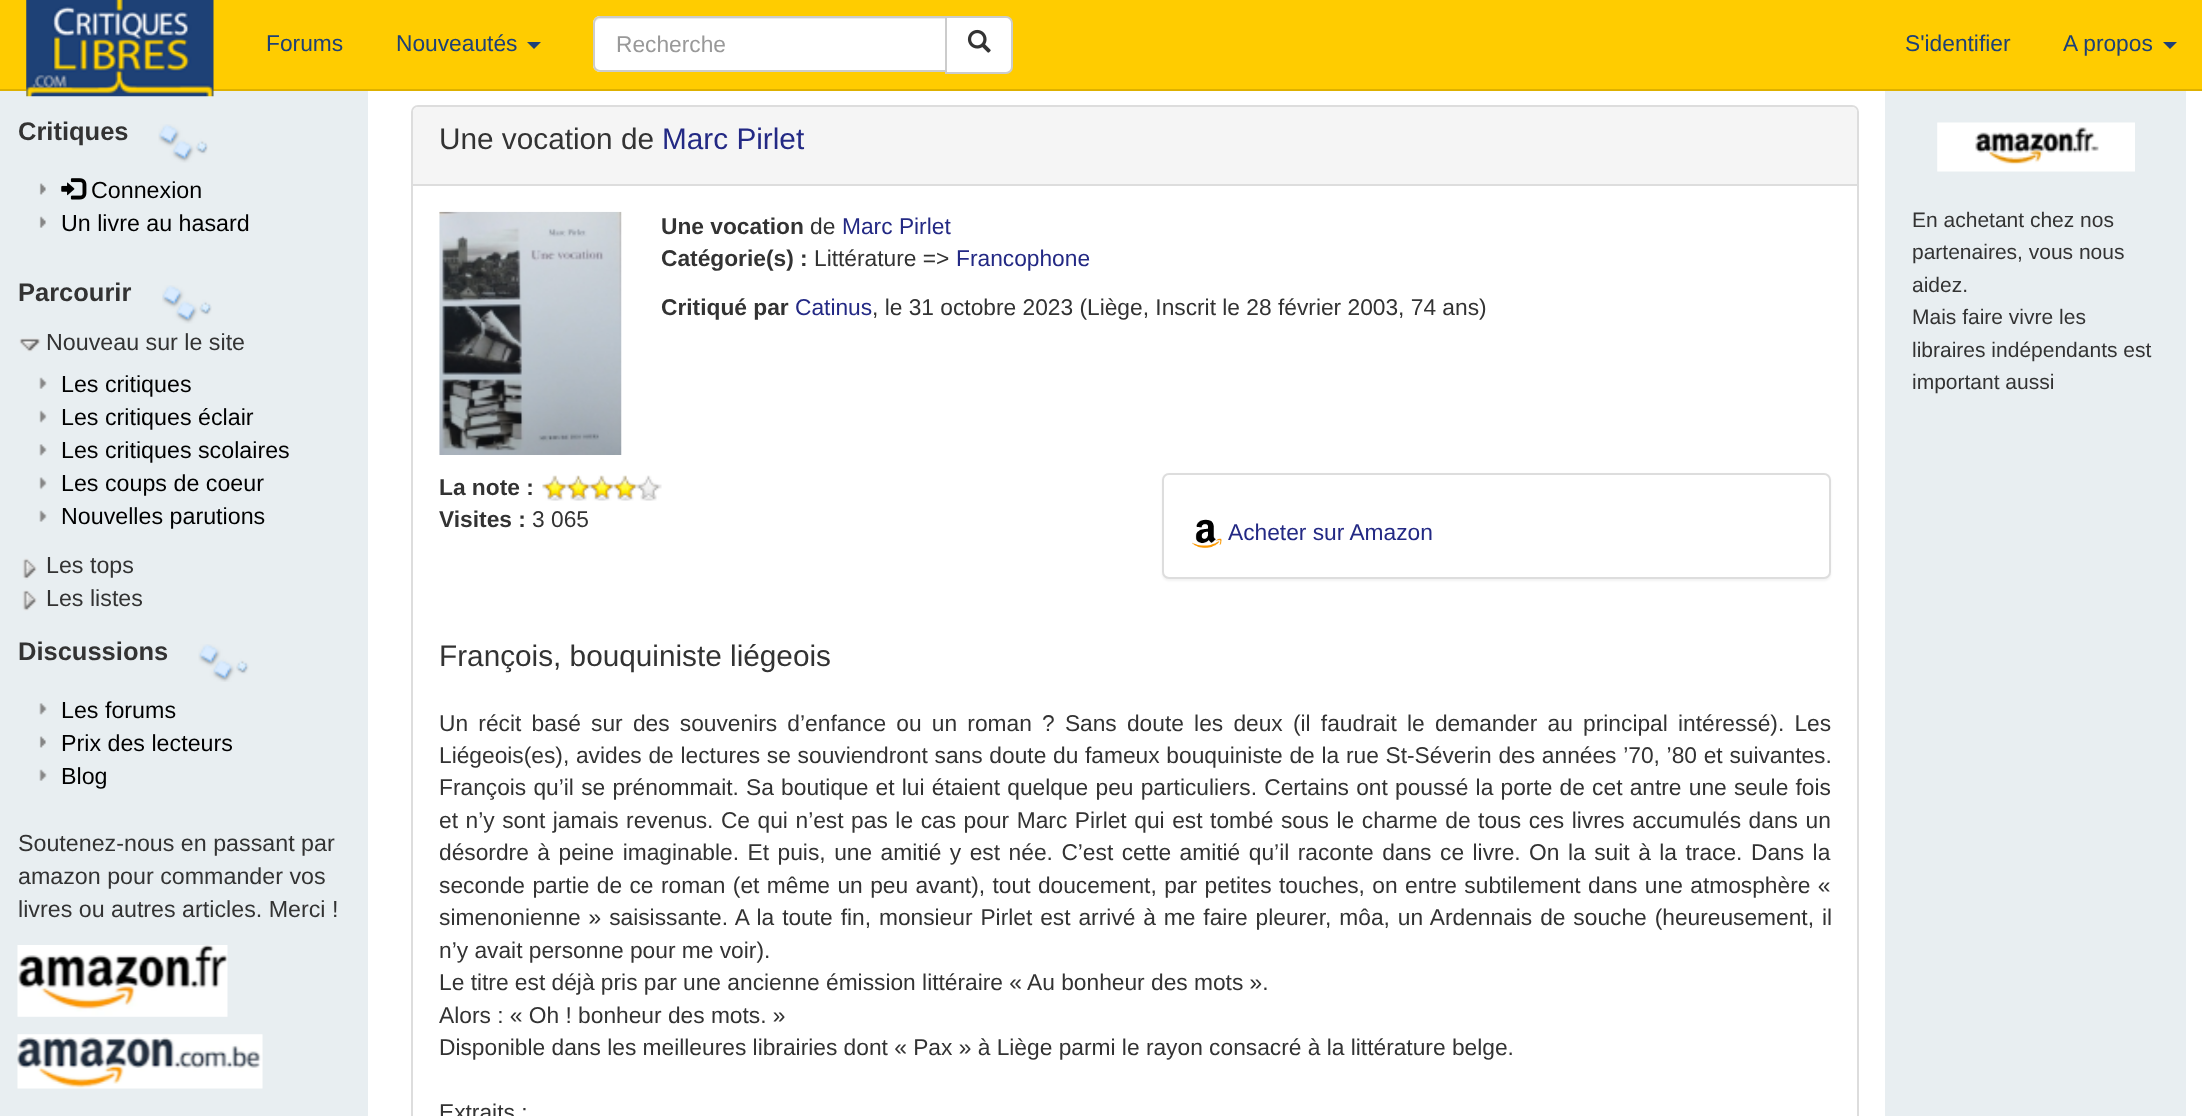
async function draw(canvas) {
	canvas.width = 2202;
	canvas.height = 1116;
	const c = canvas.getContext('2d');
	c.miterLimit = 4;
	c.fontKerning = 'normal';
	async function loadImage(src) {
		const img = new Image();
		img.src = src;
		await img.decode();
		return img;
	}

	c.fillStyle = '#fff';
	c.fillRect(0, 0, 2202, 1116);
	for (const [x, y, w, h, color] of [
		[0, 0, 2202, 89, '#fc0'],
		[0, 89, 2202, 2, '#deb100'],
		[0, 91, 368, 1025, '#e8eef1'],
	]) {
		c.fillStyle = color;
		c.fillRect(x, y, w, h);
	}
	c.drawImage(await loadImage('img1.png'), 26, 0, 188, 97);
	c.font = '22.75px Liberation Sans';
	c.fillStyle = '#1e4176';
	c.fillText('Forums', 266, 51);
	c.fillText('Nouveautés', 396, 51);
	c.beginPath();
	c.moveTo(527, 42);
	c.lineTo(541, 42);
	c.lineTo(534, 49);
	c.closePath();
	c.fill();
	c.fillStyle = '#fff';
	c.beginPath();
	c.roundRect(593, 16, 354, 56, [7, 0, 0, 7]);
	c.fill();
	c.fillStyle = '#ececec';
	c.beginPath();
	c.moveTo(600, 19);
	c.lineTo(945, 19);
	c.lineTo(945, 18);
	c.lineTo(600, 18);
	c.bezierCurveTo(597, 18, 595, 20, 595, 23);
	c.lineTo(595, 24);
	c.bezierCurveTo(595, 22, 597, 19, 600, 19);
	c.closePath();
	c.fill();
	c.beginPath();
	c.roundRect(594, 17, 352, 54, [6, 0, 0, 6]);
	c.strokeStyle = '#ccc';
	c.lineWidth = 2;
	c.stroke();
	c.fillStyle = '#999';
	c.fillText('Recherche', 616, 52);
	c.fillStyle = '#fff';
	c.beginPath();
	c.roundRect(946, 17, 66, 56, [0, 6, 6, 0]);
	c.fill();
	c.stroke();
	c.drawImage(await loadImage('img2.png'), 967, 29, 24, 24);
	c.fillStyle = '#1e4176';
	c.fillText('S\'identifier', 1905, 51);
	c.fillText('A propos', 2063, 51);
	c.beginPath();
	c.moveTo(2163, 42);
	c.lineTo(2177, 42);
	c.lineTo(2170, 49);
	c.closePath();
	c.fill();
	c.font = 'bold 25.5px Liberation Sans';
	c.fillStyle = '#333';
	c.fillText('Critiques', 18, 140);
	c.drawImage(await loadImage('img3.png'), 158, 124, 50, 39);
	c.drawImage(await loadImage('img4.png'), 39, 183, 7, 12);
	c.drawImage(await loadImage('img5.png'), 61, 178, 26, 22);
	c.font = '23.25px Liberation Sans';
	c.fillStyle = '#000';
	c.fillText('Connexion', 91, 198);
	c.drawImage(await loadImage('img6.png'), 39, 216, 7, 12);
	c.fillText('Un livre au hasard', 61, 231);
	c.font = 'bold 25.5px Liberation Sans';
	c.fillStyle = '#333';
	c.fillText('Parcourir', 18, 301);
	c.drawImage(await loadImage('img7.png'), 162, 285, 50, 39);
	c.drawImage(await loadImage('img8.png'), 19, 338, 22, 14);
	c.font = '23.25px Liberation Sans';
	c.fillText('Nouveau sur le site', 46, 350);
	c.drawImage(await loadImage('img9.png'), 39, 377, 8, 12);
	c.fillStyle = '#000';
	c.fillText('Les critiques', 61, 392);
	c.drawImage(await loadImage('img10.png'), 39, 410, 8, 13);
	c.fillText('Les critiques éclair', 61, 425);
	c.drawImage(await loadImage('img11.png'), 39, 444, 8, 12);
	c.fillText('Les critiques scolaires', 61, 458);
	c.drawImage(await loadImage('img12.png'), 39, 477, 8, 13);
	c.fillText('Les coups de coeur', 61, 491);
	c.drawImage(await loadImage('img13.png'), 39, 510, 8, 12);
	c.fillText('Nouvelles parutions', 61, 524);
	c.drawImage(await loadImage('img14.png'), 22, 558, 15, 22);
	c.fillStyle = '#333';
	c.fillText('Les tops', 46, 573);
	c.drawImage(await loadImage('img15.png'), 22, 590, 15, 21);
	c.fillText('Les listes', 46, 606);
	c.font = 'bold 25.5px Liberation Sans';
	c.fillText('Discussions', 18, 660);
	c.drawImage(await loadImage('img16.png'), 198, 644, 51, 38);
	c.drawImage(await loadImage('img11.png'), 39, 703, 8, 12);
	c.font = '23.25px Liberation Sans';
	c.fillStyle = '#000';
	c.fillText('Les forums', 61, 718);
	c.drawImage(await loadImage('img4.png'), 39, 736, 7, 12);
	c.fillText('Prix des lecteurs', 61, 751);
	c.drawImage(await loadImage('img9.png'), 39, 769, 8, 12);
	c.fillText('Blog', 61, 784);
	c.fillStyle = '#333';
	for (const [text, x, y] of [
		['Soutenez-nous en passant par', 18, 851],
		['amazon pour commander vos', 18, 884],
		['livres ou autres articles. Merci !', 18, 917],
	]) {
		c.fillText(text, x, y);
	}
	c.drawImage(await loadImage('img17.png'), 17, 945, 211, 72);
	c.drawImage(await loadImage('img18.png'), 17, 1034, 246, 55);
	c.beginPath();
	c.roundRect(412, 106, 1446, 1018, 6);
	c.strokeStyle = '#ddd';
	c.stroke();
	c.fillStyle = '#f5f5f5';
	c.beginPath();
	c.roundRect(413, 107, 1444, 79, [5, 5, 0, 0]);
	c.fill();
	c.fillStyle = '#ddd';
	c.fillRect(413, 184, 1444, 2);
	c.font = '29.75px Liberation Sans';
	c.fillStyle = '#333';
	c.fillText('Une vocation de', 439, 149);
	c.fillStyle = '#232984';
	c.fillText('Marc Pirlet', 662, 149);
	c.drawImage(await loadImage('img19.png'), 439, 211, 183, 244);
	c.font = 'bold 22.75px Liberation Sans';
	c.fillStyle = '#333';
	c.fillText('Une vocation', 661, 234);
	c.font = '22.75px Liberation Sans';
	c.fillText('de', 810, 234);
	c.fillStyle = '#232984';
	c.fillText('Marc Pirlet', 842, 234);
	c.font = 'bold 22.75px Liberation Sans';
	c.fillStyle = '#333';
	c.fillText('Catégorie(s) :', 661, 266);
	c.font = '22.75px Liberation Sans';
	c.fillText('Littérature =>', 814, 266);
	c.fillStyle = '#232984';
	c.fillText('Francophone', 956, 266);
	c.font = 'bold 22.75px Liberation Sans';
	c.fillStyle = '#333';
	c.fillText('Critiqué par', 661, 315);
	c.font = '22.75px Liberation Sans';
	c.fillStyle = '#232984';
	c.fillText('Catinus', 795, 315);
	c.fillStyle = '#333';
	c.fillText(', le 31 octobre 2023 (Liège, Inscrit le 28 février 2003, 74 ans)', 872, 315);
	c.font = 'bold 22.75px Liberation Sans';
	c.fillText('La note :', 439, 495);
	c.drawImage(await loadImage('img20.png'), 542, 475, 120, 26);
	c.fillText('Visites :', 439, 527);
	c.font = '22.75px Liberation Sans';
	c.fillText('3 065', 532, 527);
	c.fillStyle = '#0000000d';
	c.filter = 'blur(1px)';
	c.beginPath();
	c.roundRect(1162, 474, 669, 107, 7);
	c.fill();
	c.filter = 'none';
	c.fillStyle = '#fff';
	c.beginPath();
	c.roundRect(1163, 474, 667, 104, 6);
	c.fill();
	c.stroke();
	c.drawImage(await loadImage('img21.png'), 1192, 519, 30, 29);
	c.fillStyle = '#232984';
	c.fillText('Acheter sur Amazon', 1228, 540);
	c.font = '29.75px Liberation Sans';
	c.fillStyle = '#333';
	c.fillText('François, bouquiniste liégeois', 439, 666);
	c.wordSpacing = '3.9px';
	c.font = '22.75px Liberation Sans';
	c.fillText('Un récit basé sur des souvenirs d’enfance ou un roman ? Sans doute les deux (il faudrait le demander au principal intéressé). Les', 439, 731);
	c.wordSpacing = '0.4px';
	c.fillText('Liégeois(es), avides de lectures se souviendront sans doute du fameux bouquiniste de la rue St-Séverin des années ’70, ’80 et suivantes.', 439, 763);
	c.wordSpacing = '0.9px';
	c.fillText('François qu’il se prénommait. Sa boutique et lui étaient quelque peu particuliers. Certains ont poussé la porte de cet antre une seule fois', 439, 795);
	c.wordSpacing = '1.25px';
	c.fillText('et n’y sont jamais revenus. Ce qui n’est pas le cas pour Marc Pirlet qui est tombé sous le charme de tous ces livres accumulés dans un', 439, 828);
	c.wordSpacing = '2.2px';
	c.fillText('désordre à peine imaginable. Et puis, une amitié y est née. C’est cette amitié qu’il raconte dans ce livre. On la suit à la trace. Dans la', 439, 860);
	c.wordSpacing = '1.1px';
	c.fillText('seconde partie de ce roman (et même un peu avant), tout doucement, par petites touches, on entre subtilement dans une atmosphère «', 439, 893);
	c.wordSpacing = '1.6px';
	c.fillText('simenonienne » saisissante. A la toute fin, monsieur Pirlet est arrivé à me faire pleurer, môa, un Ardennais de souche (heureusement, il', 439, 925);
	c.wordSpacing = '0px';
	for (const [text, x, y] of [
		['n’y avait personne pour me voir).', 439, 958],
		['Le titre est déjà pris par une ancienne émission littéraire « Au bonheur des mots ».', 439, 990],
		['Alors : « Oh ! bonheur des mots. »', 439, 1023],
		['Disponible dans les meilleures librairies dont « Pax » à Liège parmi le rayon consacré à la littérature belge.', 439, 1055],
		['Extraits :', 439, 1120],
	]) {
		c.fillText(text, x, y);
	}
	c.fillStyle = '#e8eef1';
	c.fillRect(1885, 91, 301, 1025);
	c.drawImage(await loadImage('img22.png'), 1937, 122, 198, 50);
	c.font = '21px Liberation Sans';
	c.fillStyle = '#333';
	for (const [text, x, y] of [
		['En achetant chez nos', 1912, 227],
		['partenaires, vous nous', 1912, 259],
		['aidez.', 1912, 292],
		['Mais faire vivre les', 1912, 324],
		['libraires indépendants est', 1912, 357],
		['important aussi', 1912, 389],
	]) {
		c.fillText(text, x, y);
	}
}

draw(document.querySelector('canvas'));
